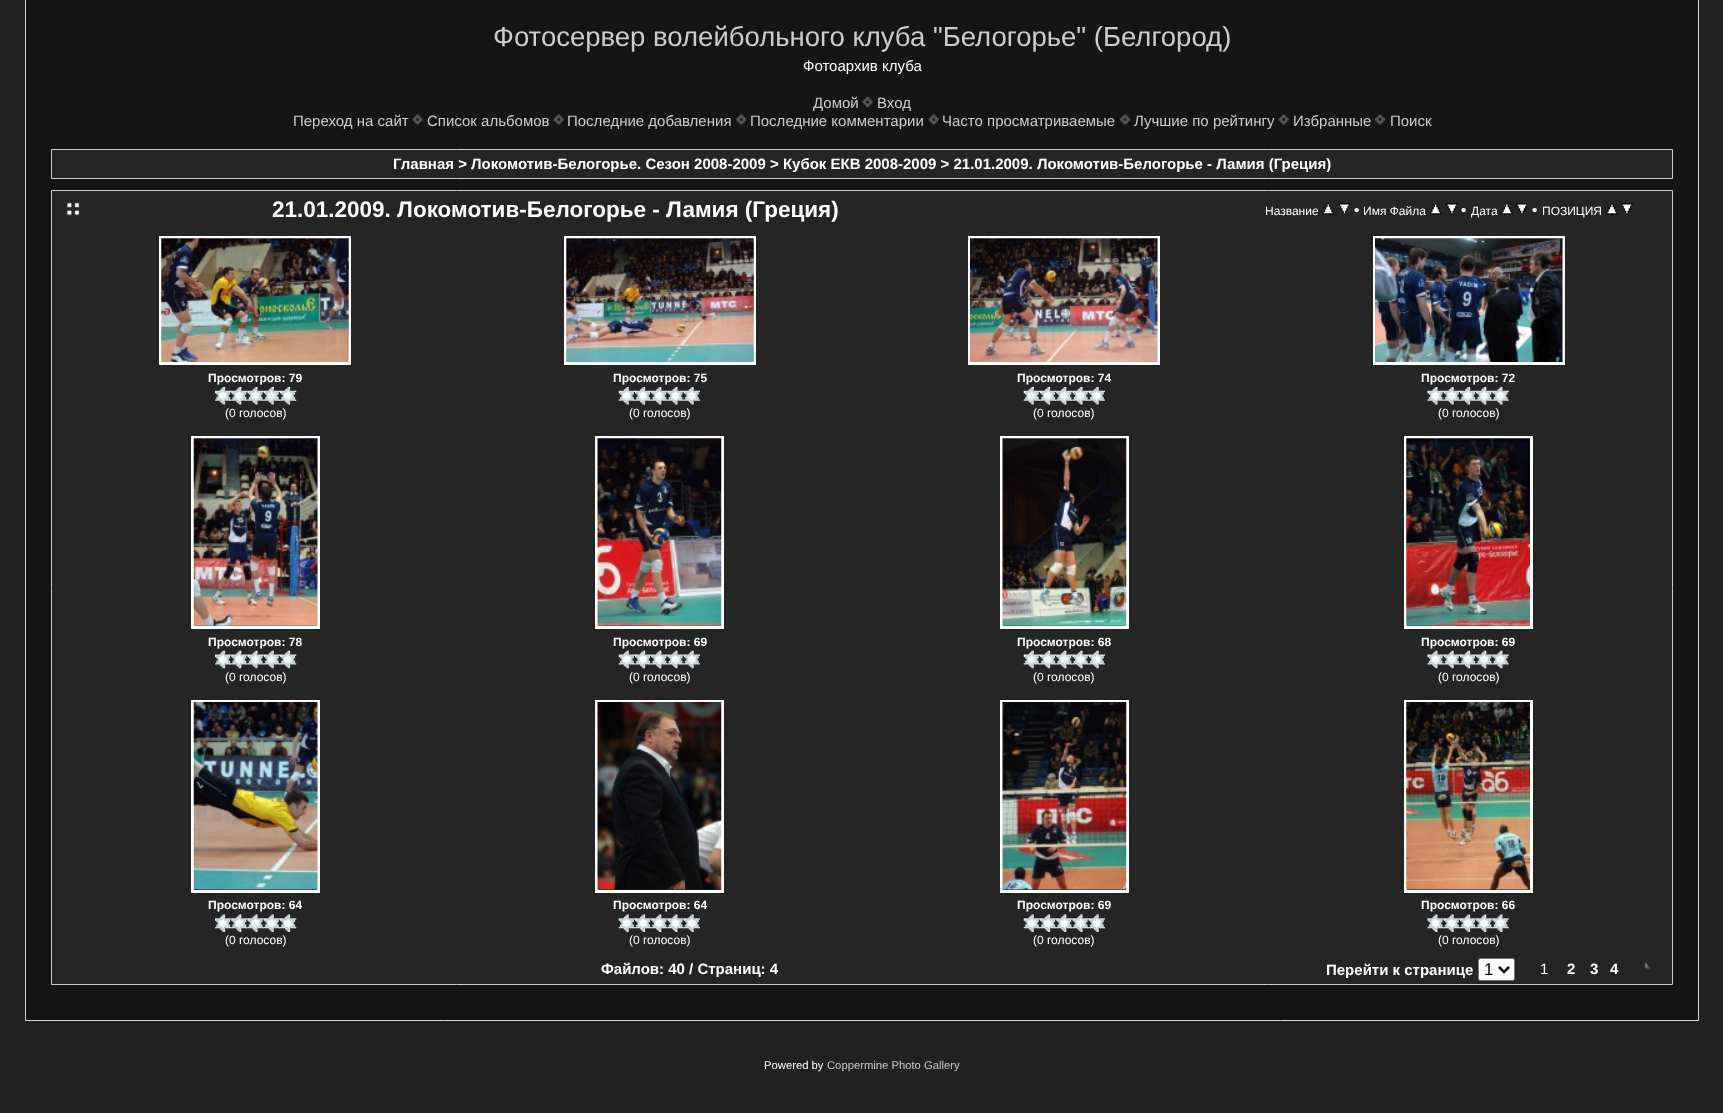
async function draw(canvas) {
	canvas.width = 1723;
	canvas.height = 1113;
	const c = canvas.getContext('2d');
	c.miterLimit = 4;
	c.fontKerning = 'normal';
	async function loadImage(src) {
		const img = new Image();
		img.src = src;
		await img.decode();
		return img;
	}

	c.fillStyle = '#fff';
	c.fillRect(0, 0, 1723, 1113);
	c.drawImage(await loadImage('img1.png'), 0, 0, 1723, 1113);
	c.fillStyle = '#151515';
	c.beginPath();
	c.rect(25.5, -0.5, 1673, 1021);
	c.fill();
	c.strokeStyle = '#ccd7e0';
	c.stroke();
	c.font = '27.5px Liberation Sans';
	c.fillStyle = '#ccc';
	c.fillText('Фотосервер волейбольного клуба "Белогорье" (Белгород)', 493, 46);
	c.font = '15px Liberation Sans';
	c.fillStyle = '#fff';
	c.fillText('Фотоархив клуба', 803, 71);
	c.fillStyle = '#ccc';
	c.fillText('Домой', 813, 108);
	c.drawImage(await loadImage('img2.png'), 862, 97, 11, 10);
	c.fillText('Вход', 877, 108);
	c.fillText('Переход на сайт', 293, 126);
	c.drawImage(await loadImage('img3.png'), 412, 114, 11, 11);
	c.fillText('Список альбомов', 427, 126);
	c.drawImage(await loadImage('img4.png'), 553, 114, 11, 11);
	c.fillText('Последние добавления', 567, 126);
	c.drawImage(await loadImage('img5.png'), 736, 114, 11, 11);
	c.fillText('Последние комментарии', 750, 126);
	c.drawImage(await loadImage('img4.png'), 928, 114, 11, 11);
	c.fillText('Часто просматриваемые', 942, 126);
	c.drawImage(await loadImage('img6.png'), 1120, 114, 10, 11);
	c.fillText('Лучшие по рейтингу', 1134, 126);
	c.drawImage(await loadImage('img7.png'), 1278, 114, 11, 11);
	c.fillText('Избранные', 1293, 126);
	c.drawImage(await loadImage('img8.png'), 1375, 114, 10, 11);
	c.fillText('Поиск', 1390, 126);
	c.fillStyle = '#252525';
	c.beginPath();
	c.rect(51.5, 149.5, 1621, 29);
	c.fill();
	c.strokeStyle = '#ccc';
	c.stroke();
	c.font = 'bold 15px Liberation Sans';
	c.fillStyle = '#fff';
	c.fillText('Главная > Локомотив-Белогорье. Сезон 2008-2009 > Кубок ЕКВ 2008-2009 > 21.01.2009. Локомотив-Белогорье - Ламия (Греция)', 393, 169);
	c.fillStyle = '#252525';
	c.beginPath();
	c.rect(51.5, 190.5, 1621, 794);
	c.fill();
	c.stroke();
	c.drawImage(await loadImage('img9.png'), 66, 202, 14, 14);
	c.font = 'bold 22.5px Liberation Sans';
	c.fillStyle = '#fff';
	c.fillText('21.01.2009. Локомотив-Белогорье - Ламия (Греция)', 272, 217);
	c.font = '12px Liberation Sans';
	c.fillText('Название', 1265, 215);
	c.drawImage(await loadImage('img10.png'), 1322, 203, 12, 12);
	c.drawImage(await loadImage('img11.png'), 1338, 203, 12, 12);
	c.font = 'bold 15px Liberation Sans';
	c.fillText('•', 1354, 215);
	c.font = '12px Liberation Sans';
	c.fillText('Имя Файла', 1363, 215);
	c.drawImage(await loadImage('img12.png'), 1430, 203, 12, 12);
	c.drawImage(await loadImage('img13.png'), 1446, 203, 12, 12);
	c.font = 'bold 15px Liberation Sans';
	c.fillText('•', 1461, 215);
	c.font = '12px Liberation Sans';
	c.fillText('Дата', 1471, 215);
	c.drawImage(await loadImage('img14.png'), 1501, 203, 12, 12);
	c.drawImage(await loadImage('img13.png'), 1516, 203, 12, 12);
	c.font = 'bold 15px Liberation Sans';
	c.fillText('•', 1532, 215);
	c.font = '12px Liberation Sans';
	c.fillText('ПОЗИЦИЯ', 1542, 215);
	c.drawImage(await loadImage('img14.png'), 1606, 203, 12, 12);
	c.drawImage(await loadImage('img13.png'), 1621, 203, 12, 12);
	c.strokeStyle = '#fff';
	c.lineWidth = 3;
	c.strokeRect(160.5, 237.5, 189, 126);
	c.drawImage(await loadImage('img15.png'), 161, 238, 188, 124);
	c.font = 'bold 12px Liberation Sans';
	c.fillText('Просмотров: 79', 208, 382);
	c.drawImage(await loadImage('img16.png'), 215, 387, 17, 18);
	c.drawImage(await loadImage('img17.png'), 231, 387, 17, 18);
	c.drawImage(await loadImage('img18.png'), 247, 387, 17, 18);
	c.drawImage(await loadImage('img19.png'), 263, 387, 17, 18);
	c.drawImage(await loadImage('img20.png'), 280, 387, 17, 18);
	c.font = '12px Liberation Sans';
	c.fillText('(0 голосов)', 225, 417);
	c.strokeRect(565.5, 237.5, 189, 126);
	c.drawImage(await loadImage('img21.png'), 566, 238, 188, 124);
	c.font = 'bold 12px Liberation Sans';
	c.fillText('Просмотров: 75', 613, 382);
	c.drawImage(await loadImage('img22.png'), 618, 387, 17, 18);
	c.drawImage(await loadImage('img16.png'), 635, 387, 17, 18);
	c.drawImage(await loadImage('img17.png'), 651, 387, 17, 18);
	c.drawImage(await loadImage('img18.png'), 667, 387, 17, 18);
	c.drawImage(await loadImage('img23.png'), 683, 387, 17, 18);
	c.font = '12px Liberation Sans';
	c.fillText('(0 голосов)', 629, 417);
	c.strokeRect(969.5, 237.5, 189, 126);
	c.drawImage(await loadImage('img24.png'), 970, 238, 188, 124);
	c.font = 'bold 12px Liberation Sans';
	c.fillText('Просмотров: 74', 1017, 382);
	c.drawImage(await loadImage('img25.png'), 1023, 387, 17, 18);
	c.drawImage(await loadImage('img20.png'), 1040, 387, 17, 18);
	c.drawImage(await loadImage('img17.png'), 1056, 387, 17, 18);
	c.drawImage(await loadImage('img26.png'), 1072, 387, 17, 18);
	c.drawImage(await loadImage('img23.png'), 1088, 387, 17, 18);
	c.font = '12px Liberation Sans';
	c.fillText('(0 голосов)', 1033, 417);
	c.strokeRect(1374.5, 237.5, 189, 126);
	c.drawImage(await loadImage('img27.png'), 1375, 238, 188, 124);
	c.font = 'bold 12px Liberation Sans';
	c.fillText('Просмотров: 72', 1421, 382);
	c.drawImage(await loadImage('img28.png'), 1427, 387, 17, 18);
	c.drawImage(await loadImage('img19.png'), 1443, 387, 17, 18);
	c.drawImage(await loadImage('img16.png'), 1460, 387, 17, 18);
	c.drawImage(await loadImage('img17.png'), 1476, 387, 17, 18);
	c.drawImage(await loadImage('img18.png'), 1492, 387, 17, 18);
	c.font = '12px Liberation Sans';
	c.fillText('(0 голосов)', 1438, 417);
	c.strokeRect(192.5, 437.5, 126, 190);
	c.drawImage(await loadImage('img29.png'), 193, 438, 125, 188);
	c.font = 'bold 12px Liberation Sans';
	c.fillText('Просмотров: 78', 208, 646);
	c.drawImage(await loadImage('img30.png'), 215, 650, 17, 19);
	c.drawImage(await loadImage('img31.png'), 231, 650, 17, 19);
	c.drawImage(await loadImage('img32.png'), 247, 650, 17, 19);
	c.drawImage(await loadImage('img33.png'), 263, 650, 17, 19);
	c.drawImage(await loadImage('img34.png'), 280, 650, 17, 19);
	c.font = '12px Liberation Sans';
	c.fillText('(0 голосов)', 225, 681);
	c.strokeRect(596.5, 437.5, 126, 190);
	c.drawImage(await loadImage('img35.png'), 597, 438, 125, 188);
	c.font = 'bold 12px Liberation Sans';
	c.fillText('Просмотров: 69', 613, 646);
	c.drawImage(await loadImage('img36.png'), 618, 650, 17, 19);
	c.drawImage(await loadImage('img30.png'), 635, 650, 17, 19);
	c.drawImage(await loadImage('img31.png'), 651, 650, 17, 19);
	c.drawImage(await loadImage('img32.png'), 667, 650, 17, 19);
	c.drawImage(await loadImage('img37.png'), 683, 650, 17, 19);
	c.font = '12px Liberation Sans';
	c.fillText('(0 голосов)', 629, 681);
	c.strokeRect(1001.5, 437.5, 126, 190);
	c.drawImage(await loadImage('img38.png'), 1002, 438, 125, 188);
	c.font = 'bold 12px Liberation Sans';
	c.fillText('Просмотров: 68', 1017, 646);
	c.drawImage(await loadImage('img39.png'), 1023, 650, 17, 19);
	c.drawImage(await loadImage('img34.png'), 1040, 650, 17, 19);
	c.drawImage(await loadImage('img31.png'), 1056, 650, 17, 19);
	c.drawImage(await loadImage('img40.png'), 1072, 650, 17, 19);
	c.drawImage(await loadImage('img37.png'), 1088, 650, 17, 19);
	c.font = '12px Liberation Sans';
	c.fillText('(0 голосов)', 1033, 681);
	c.strokeRect(1405.5, 437.5, 126, 190);
	c.drawImage(await loadImage('img41.png'), 1406, 438, 124, 188);
	c.font = 'bold 12px Liberation Sans';
	c.fillText('Просмотров: 69', 1421, 646);
	c.drawImage(await loadImage('img42.png'), 1427, 650, 17, 19);
	c.drawImage(await loadImage('img33.png'), 1443, 650, 17, 19);
	c.drawImage(await loadImage('img30.png'), 1460, 650, 17, 19);
	c.drawImage(await loadImage('img31.png'), 1476, 650, 17, 19);
	c.drawImage(await loadImage('img32.png'), 1492, 650, 17, 19);
	c.font = '12px Liberation Sans';
	c.fillText('(0 голосов)', 1438, 681);
	c.strokeRect(192.5, 701.5, 126, 190);
	c.drawImage(await loadImage('img43.png'), 193, 702, 125, 188);
	c.font = 'bold 12px Liberation Sans';
	c.fillText('Просмотров: 64', 208, 909);
	c.drawImage(await loadImage('img44.png'), 215, 914, 17, 18);
	c.drawImage(await loadImage('img45.png'), 231, 914, 17, 18);
	c.drawImage(await loadImage('img46.png'), 247, 914, 17, 18);
	c.drawImage(await loadImage('img47.png'), 263, 914, 17, 18);
	c.drawImage(await loadImage('img48.png'), 280, 914, 17, 18);
	c.font = '12px Liberation Sans';
	c.fillText('(0 голосов)', 225, 944);
	c.strokeRect(596.5, 701.5, 126, 190);
	c.drawImage(await loadImage('img49.png'), 597, 702, 125, 188);
	c.font = 'bold 12px Liberation Sans';
	c.fillText('Просмотров: 64', 613, 909);
	c.drawImage(await loadImage('img50.png'), 618, 914, 17, 18);
	c.drawImage(await loadImage('img44.png'), 635, 914, 17, 18);
	c.drawImage(await loadImage('img45.png'), 651, 914, 17, 18);
	c.drawImage(await loadImage('img46.png'), 667, 914, 17, 18);
	c.drawImage(await loadImage('img51.png'), 683, 914, 17, 18);
	c.font = '12px Liberation Sans';
	c.fillText('(0 голосов)', 629, 944);
	c.strokeRect(1001.5, 701.5, 126, 190);
	c.drawImage(await loadImage('img52.png'), 1002, 702, 125, 188);
	c.font = 'bold 12px Liberation Sans';
	c.fillText('Просмотров: 69', 1017, 909);
	c.drawImage(await loadImage('img53.png'), 1023, 914, 17, 18);
	c.drawImage(await loadImage('img48.png'), 1040, 914, 17, 18);
	c.drawImage(await loadImage('img45.png'), 1056, 914, 17, 18);
	c.drawImage(await loadImage('img54.png'), 1072, 914, 17, 18);
	c.drawImage(await loadImage('img51.png'), 1088, 914, 17, 18);
	c.font = '12px Liberation Sans';
	c.fillText('(0 голосов)', 1033, 944);
	c.strokeRect(1405.5, 701.5, 126, 190);
	c.drawImage(await loadImage('img55.png'), 1406, 702, 124, 188);
	c.font = 'bold 12px Liberation Sans';
	c.fillText('Просмотров: 66', 1421, 909);
	c.drawImage(await loadImage('img56.png'), 1427, 914, 17, 18);
	c.drawImage(await loadImage('img47.png'), 1443, 914, 17, 18);
	c.drawImage(await loadImage('img44.png'), 1460, 914, 17, 18);
	c.drawImage(await loadImage('img45.png'), 1476, 914, 17, 18);
	c.drawImage(await loadImage('img46.png'), 1492, 914, 17, 18);
	c.font = '12px Liberation Sans';
	c.fillText('(0 голосов)', 1438, 944);
	c.font = 'bold 15px Liberation Sans';
	c.fillText('Файлов: 40 / Страниц: 4', 601, 974);
	c.fillText('Перейти к странице', 1326, 975);
	c.beginPath();
	c.roundRect(1478.5, 958.5, 36, 22, 2);
	c.fill();
	c.strokeStyle = '#767676';
	c.lineWidth = 1;
	c.stroke();
	c.beginPath();
	c.moveTo(1499, 967);
	c.lineTo(1504, 972);
	c.lineTo(1509, 967);
	c.strokeStyle = '#000';
	c.lineWidth = 2.5;
	c.stroke();
	c.font = '17px Liberation Sans';
	c.fillStyle = '#000';
	c.fillText('1', 1484, 975);
	c.font = '15px Liberation Sans';
	c.fillStyle = '#fff';
	c.fillText('1', 1540, 974);
	c.font = 'bold 15px Liberation Sans';
	for (const [text, x, y] of [
		['2', 1567, 974],
		['3', 1590, 974],
		['4', 1610, 974],
	]) {
		c.fillText(text, x, y);
	}
	c.drawImage(await loadImage('img57.png'), 1644, 963, 7, 9);
	c.font = '11.25px Liberation Sans';
	c.fillText('Powered by', 764, 1069);
	c.fillStyle = '#ccc';
	c.fillText('Coppermine Photo Gallery', 827, 1069);
}

draw(document.querySelector('canvas'));
